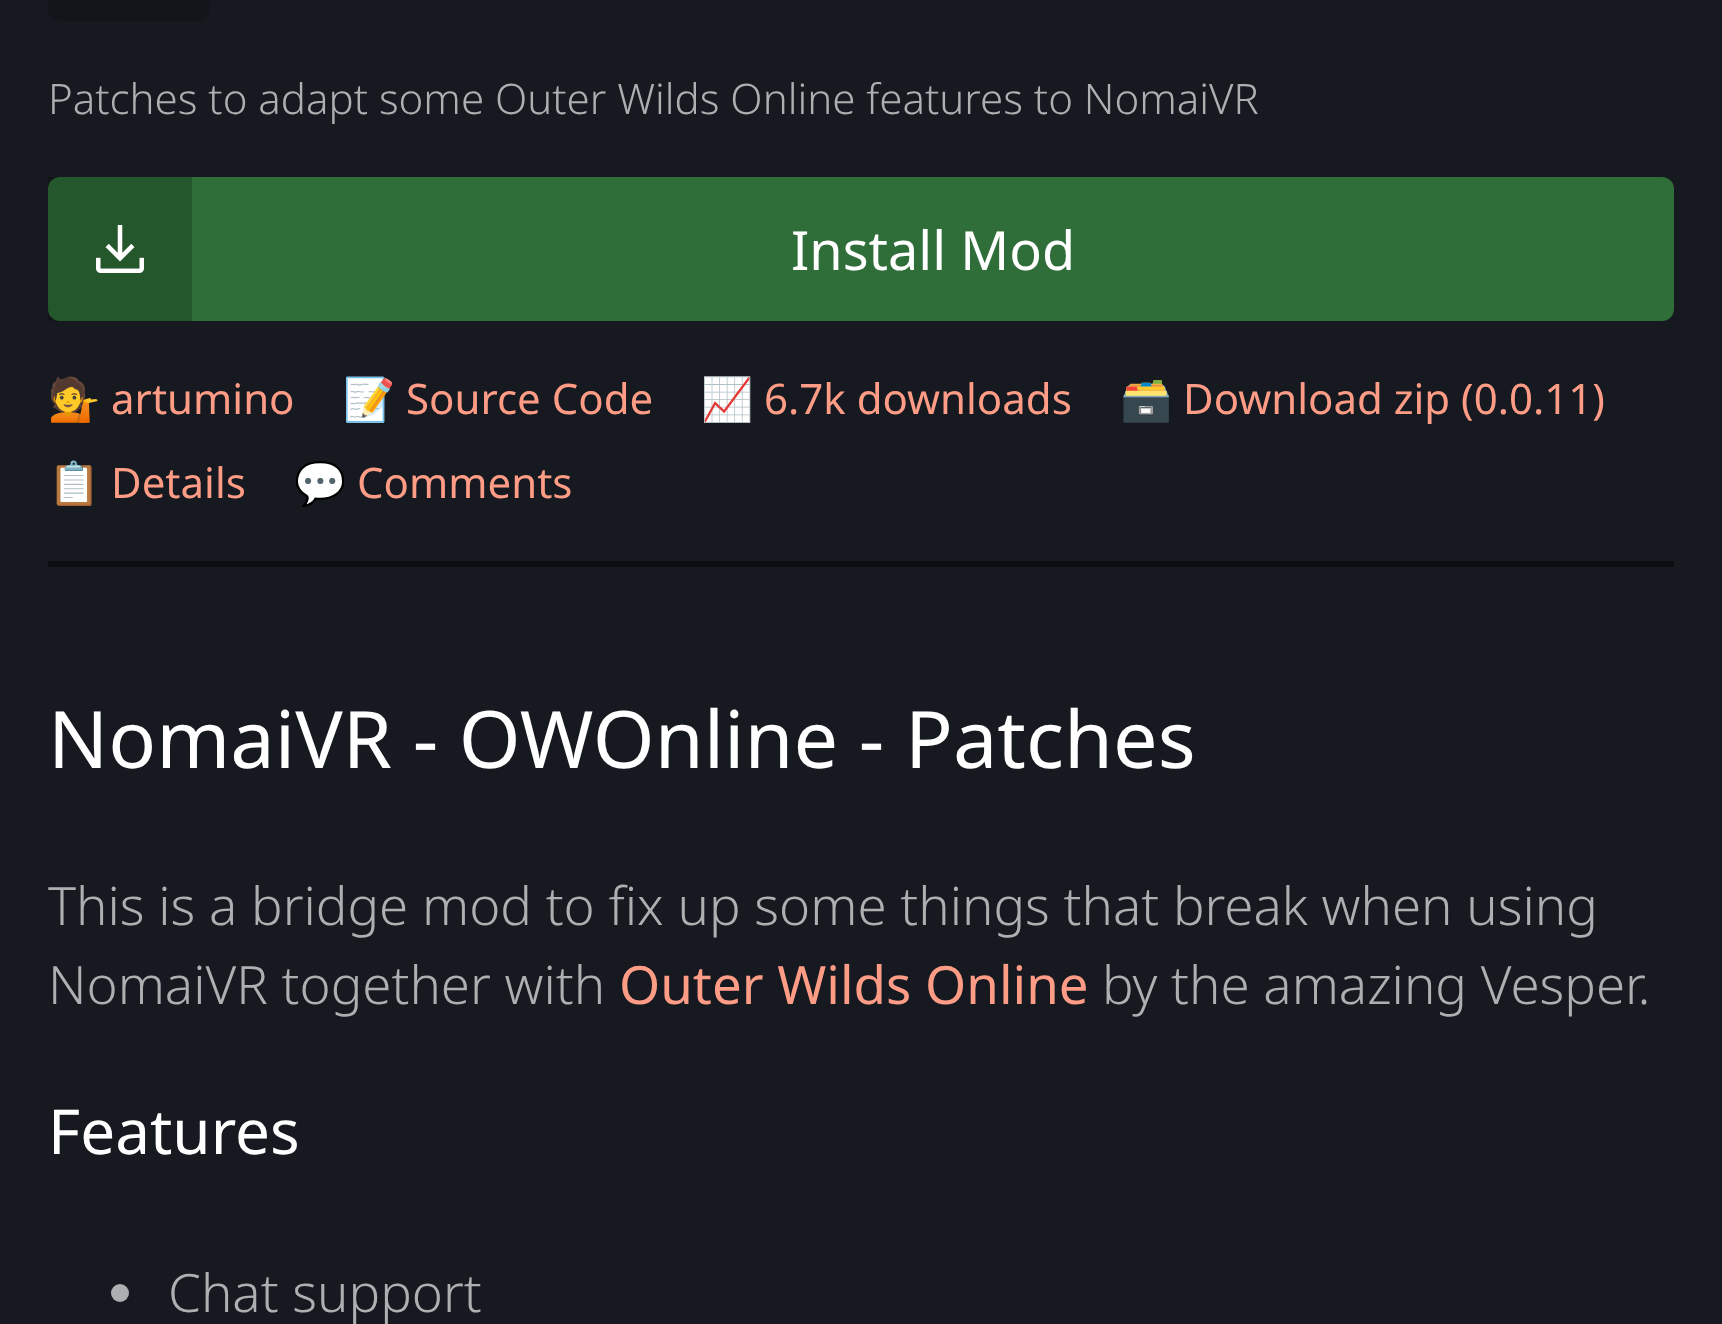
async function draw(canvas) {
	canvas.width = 1722;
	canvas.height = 1324;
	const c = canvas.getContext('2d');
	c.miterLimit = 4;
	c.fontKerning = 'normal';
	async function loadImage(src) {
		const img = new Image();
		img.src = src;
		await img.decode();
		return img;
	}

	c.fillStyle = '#161a20';
	c.fillRect(0, 0, 1722, 1324);
	c.fillStyle = '#0b0d10';
	c.fillRect(48, 561, 1626, 6);
	c.fillStyle = '#12151a';
	c.beginPath();
	c.roundRect(48, -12, 162, 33, 12);
	c.fill();
	c.font = '300 42px Noto Sans';
	c.fillStyle = '#adafb1';
	c.fillText('Patches to adapt some Outer Wilds Online features to NomaiVR', 48, 114);
	c.fillStyle = '#2f6d39';
	c.beginPath();
	c.roundRect(48, 177, 1626, 144, 12);
	c.fill();
	c.fillStyle = '#00000033';
	c.fillRect(48, 177, 144, 144);
	c.drawImage(await loadImage('img1.png'), 96, 225, 48, 48);
	c.font = '54px Noto Sans';
	c.fillStyle = '#fff';
	c.fillText('Install Mod', 791, 270);
	c.font = '42px Noto Color Emoji';
	c.fillStyle = '#ff9c86';
	c.fillText('💁', 48, 414);
	c.font = '42px Noto Sans';
	c.fillText('artumino', 111, 414);
	c.font = '42px Noto Color Emoji';
	c.fillText('📝', 343, 414);
	c.font = '42px Noto Sans';
	c.fillText('Source Code', 406, 414);
	c.font = '42px Noto Color Emoji';
	c.fillText('📈', 701, 414);
	c.font = '42px Noto Sans';
	c.fillText('6.7k downloads', 764, 414);
	c.font = '42px Noto Color Emoji';
	c.fillText('🗃️', 1120, 414);
	c.font = '42px Noto Sans';
	c.fillText('Download zip (0.0.11)', 1183, 414);
	c.font = '42px Noto Color Emoji';
	c.fillText('📋', 48, 498);
	c.font = '42px Noto Sans';
	c.fillText('Details', 111, 498);
	c.font = '42px Noto Color Emoji';
	c.fillText('💬', 294, 498);
	c.font = '42px Noto Sans';
	c.fillText('Comments', 357, 498);
	c.font = '79.25px Noto Sans';
	c.fillStyle = '#fff';
	c.fillText('NomaiVR - OWOnline - Patches', 48, 768);
	c.font = '300 52.8px Noto Sans';
	c.fillStyle = '#adafb1';
	c.fillText('This is a bridge mod to fix up some things that break when using', 48, 925);
	c.fillText('NomaiVR together with', 48, 1004);
	c.font = '52.8px Noto Sans';
	c.fillStyle = '#ff9c86';
	c.fillText('Outer Wilds Online', 619, 1004);
	c.font = '300 52.8px Noto Sans';
	c.fillStyle = '#adafb1';
	c.fillText('by the amazing Vesper.', 1102, 1004);
	c.font = '62px Noto Sans';
	c.fillStyle = '#fff';
	c.fillText('Features', 48, 1154);
	c.fillStyle = '#adafb1';
	c.beginPath();
	c.arc(120, 1293, 9, 0, 2 * Math.PI);
	c.fill();
	c.font = '300 52.8px Noto Sans';
	c.fillText('Chat support', 168, 1312);
}

draw(document.querySelector('canvas'));
